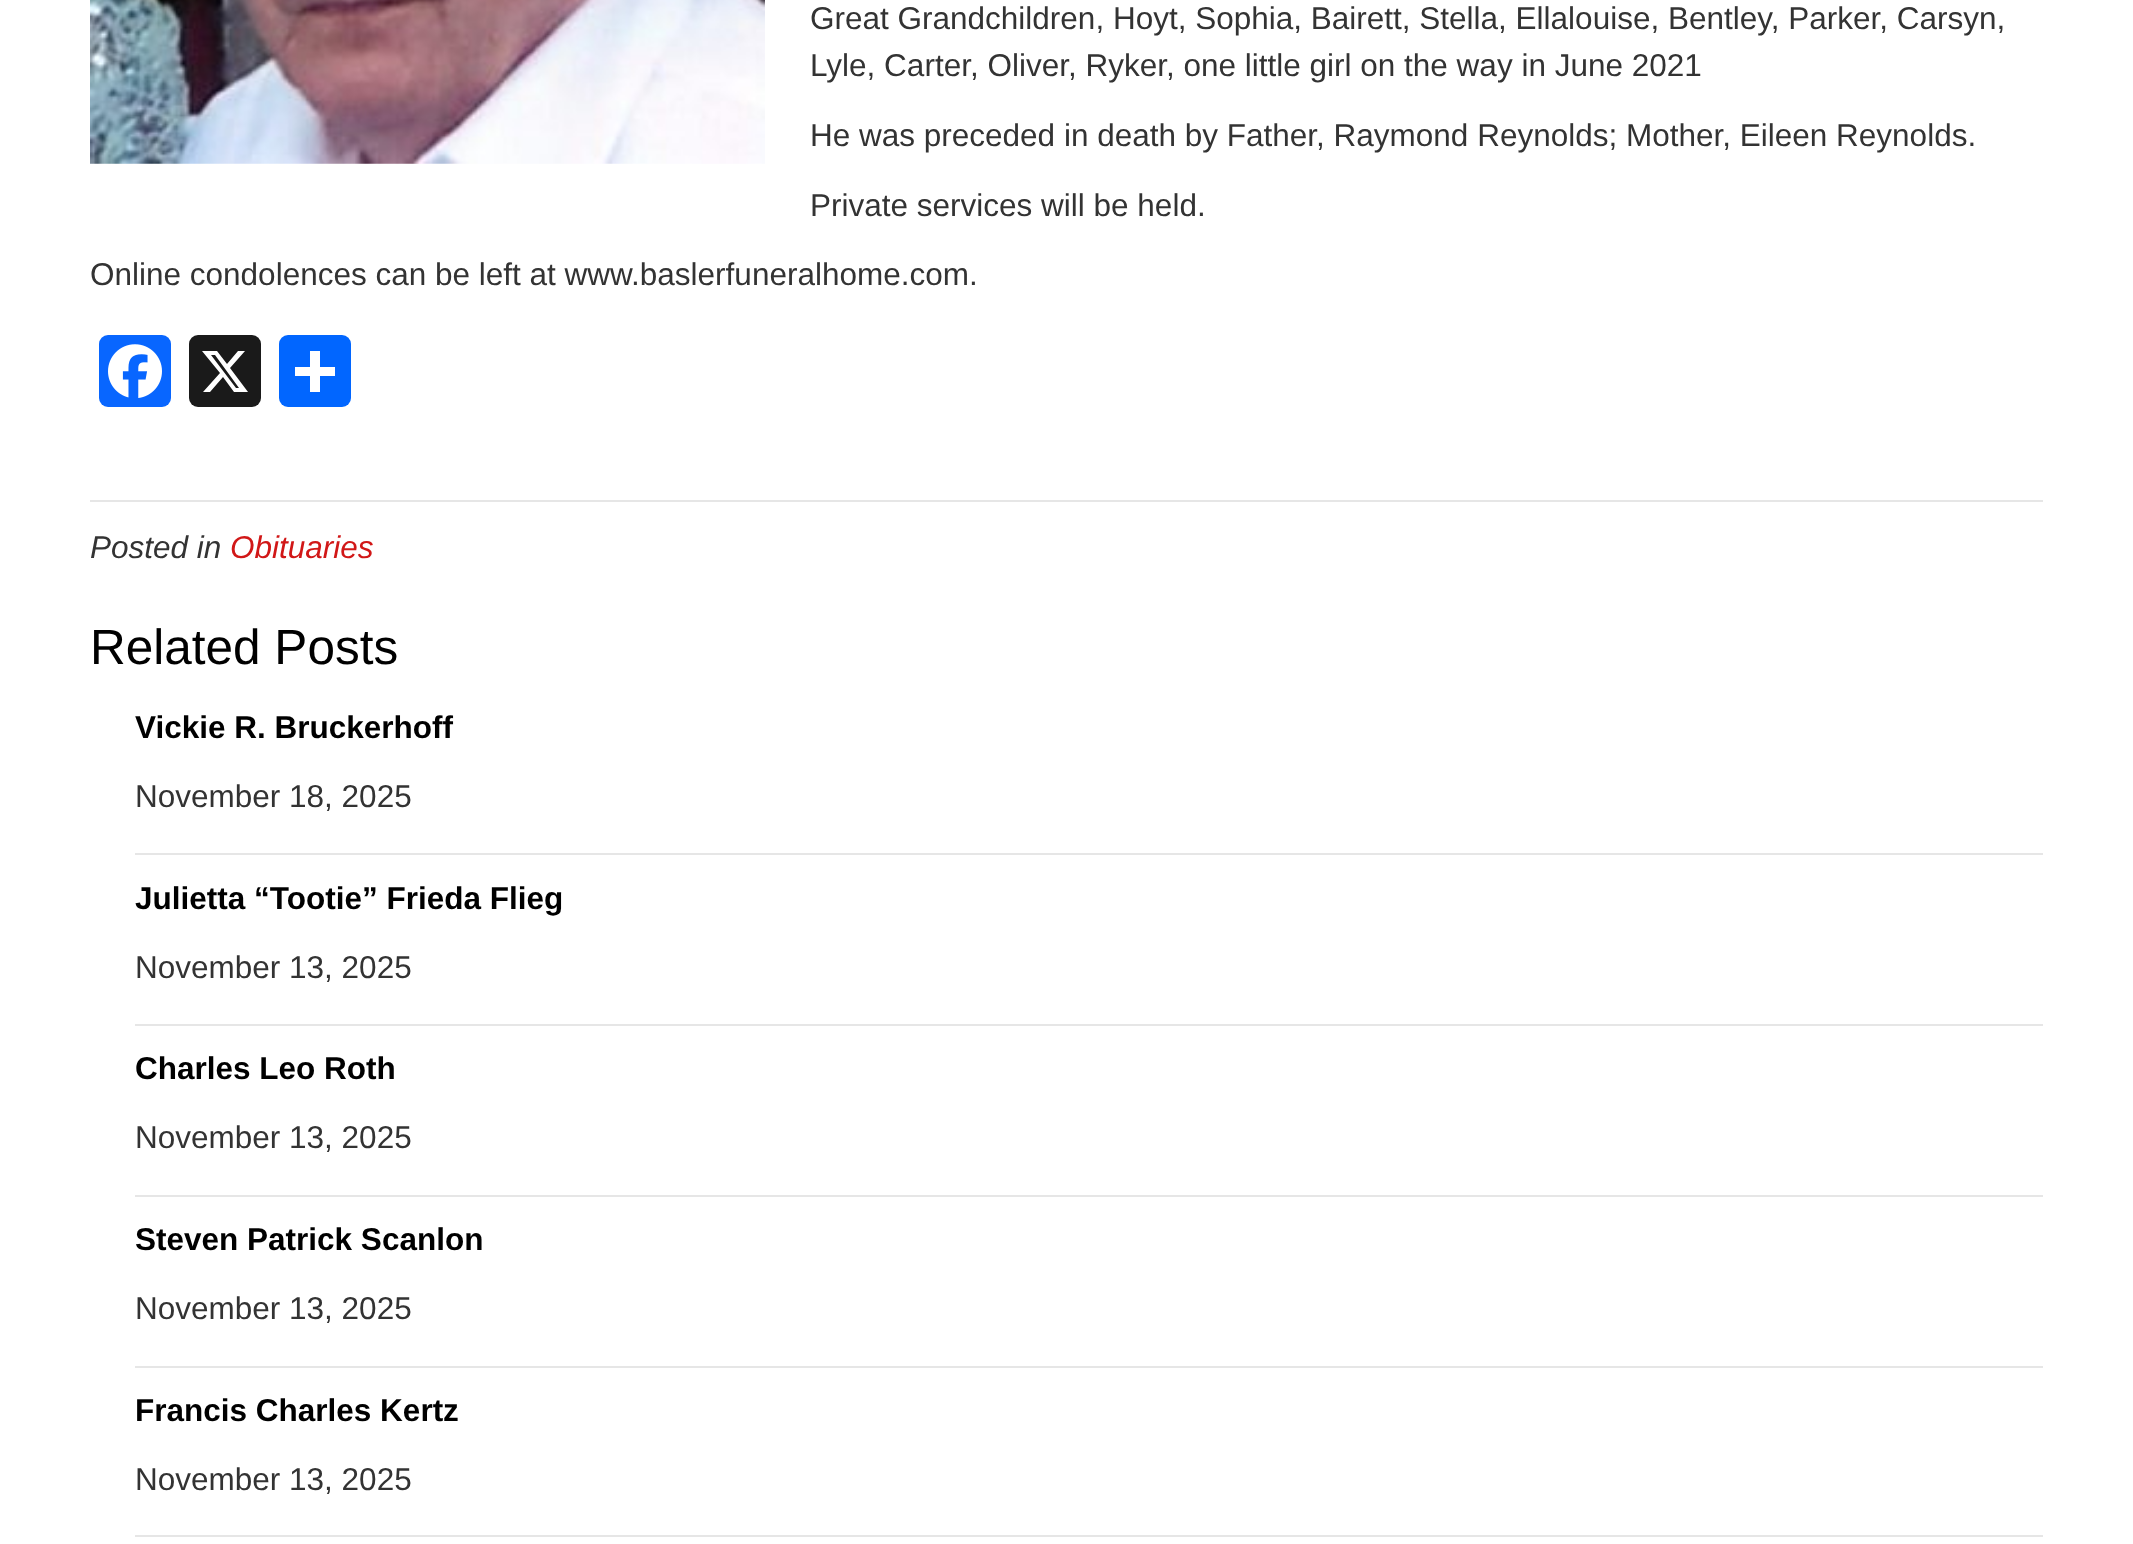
async function draw(canvas) {
	canvas.width = 2133;
	canvas.height = 1544;
	const c = canvas.getContext('2d');
	c.miterLimit = 4;
	c.fontKerning = 'normal';
	async function loadImage(src) {
		const img = new Image();
		img.src = src;
		await img.decode();
		return img;
	}

	c.fillStyle = '#fff';
	c.fillRect(0, 0, 2133, 1544);
	c.drawImage(await loadImage('img1.png'), 90, 0, 675, 164);
	c.font = '31.5px Liberation Sans';
	c.fillStyle = '#333';
	for (const [text, x, y] of [
		['Great Grandchildren, Hoyt, Sophia, Bairett, Stella, Ellalouise, Bentley, Parker, Carsyn,', 810, 29],
		['Lyle, Carter, Oliver, Ryker, one little girl on the way in June 2021', 810, 76],
		['He was preceded in death by Father, Raymond Reynolds; Mother, Eileen Reynolds.', 810, 146],
		['Private services will be held.', 810, 216],
		['Online condolences can be left at www.baslerfuneralhome.com.', 90, 285],
	]) {
		c.fillText(text, x, y);
	}
	c.fillStyle = '#0866ff';
	c.beginPath();
	c.roundRect(99, 335, 72, 72, 9);
	c.fill();
	c.drawImage(await loadImage('img2.png'), 108, 344, 54, 54);
	c.fillStyle = '#1a1a1a';
	c.beginPath();
	c.roundRect(189, 335, 72, 72, 9);
	c.fill();
	c.fillStyle = '#fff';
	c.beginPath();
	c.moveTo(238, 351);
	c.lineTo(245, 351);
	c.lineTo(230, 368);
	c.lineTo(248, 392);
	c.lineTo(234, 392);
	c.lineTo(223, 377);
	c.lineTo(210, 392);
	c.lineTo(203, 392);
	c.lineTo(220, 373);
	c.lineTo(202, 351);
	c.lineTo(217, 351);
	c.lineTo(227, 364);
	c.closePath();
	c.moveTo(236, 388);
	c.lineTo(239, 388);
	c.lineTo(215, 355);
	c.lineTo(211, 355);
	c.closePath();
	c.fill();
	c.fillStyle = '#0166ff';
	c.beginPath();
	c.roundRect(279, 335, 72, 72, 9);
	c.fill();
	for (const [x, y, w, h, color] of [
		[310, 351, 10, 41, '#fff'],
		[295, 367, 40, 9, '#fff'],
		[90, 500, 1953, 2, '#e6e6e6'],
	]) {
		c.fillStyle = color;
		c.fillRect(x, y, w, h);
	}
	c.font = 'italic 31.5px Liberation Sans';
	c.fillStyle = '#333';
	c.fillText('Posted in', 90, 558);
	c.fillStyle = '#d11717';
	c.fillText('Obituaries', 230, 558);
	c.font = '49.5px Liberation Sans';
	c.fillStyle = '#000';
	c.fillText('Related Posts', 90, 664);
	c.fillStyle = '#e6e6e6';
	c.fillRect(135, 853, 1908, 2);
	c.font = 'bold 31.5px Liberation Sans';
	c.fillStyle = '#000';
	c.fillText('Vickie R. Bruckerhoff', 135, 738);
	c.font = '31.5px Liberation Sans';
	c.fillStyle = '#333';
	c.fillText('November 18, 2025', 135, 807);
	c.fillStyle = '#e6e6e6';
	c.fillRect(135, 1024, 1908, 2);
	c.font = 'bold 31.5px Liberation Sans';
	c.fillStyle = '#000';
	c.fillText('Julietta “Tootie” Frieda Flieg', 135, 909);
	c.font = '31.5px Liberation Sans';
	c.fillStyle = '#333';
	c.fillText('November 13, 2025', 135, 978);
	c.fillStyle = '#e6e6e6';
	c.fillRect(135, 1195, 1908, 2);
	c.font = 'bold 31.5px Liberation Sans';
	c.fillStyle = '#000';
	c.fillText('Charles Leo Roth', 135, 1079);
	c.font = '31.5px Liberation Sans';
	c.fillStyle = '#333';
	c.fillText('November 13, 2025', 135, 1148);
	c.fillStyle = '#e6e6e6';
	c.fillRect(135, 1366, 1908, 2);
	c.font = 'bold 31.5px Liberation Sans';
	c.fillStyle = '#000';
	c.fillText('Steven Patrick Scanlon', 135, 1250);
	c.font = '31.5px Liberation Sans';
	c.fillStyle = '#333';
	c.fillText('November 13, 2025', 135, 1319);
	c.fillStyle = '#e6e6e6';
	c.fillRect(135, 1535, 1908, 2);
	c.font = 'bold 31.5px Liberation Sans';
	c.fillStyle = '#000';
	c.fillText('Francis Charles Kertz', 135, 1421);
	c.font = '31.5px Liberation Sans';
	c.fillStyle = '#333';
	c.fillText('November 13, 2025', 135, 1490);
}

draw(document.querySelector('canvas'));
